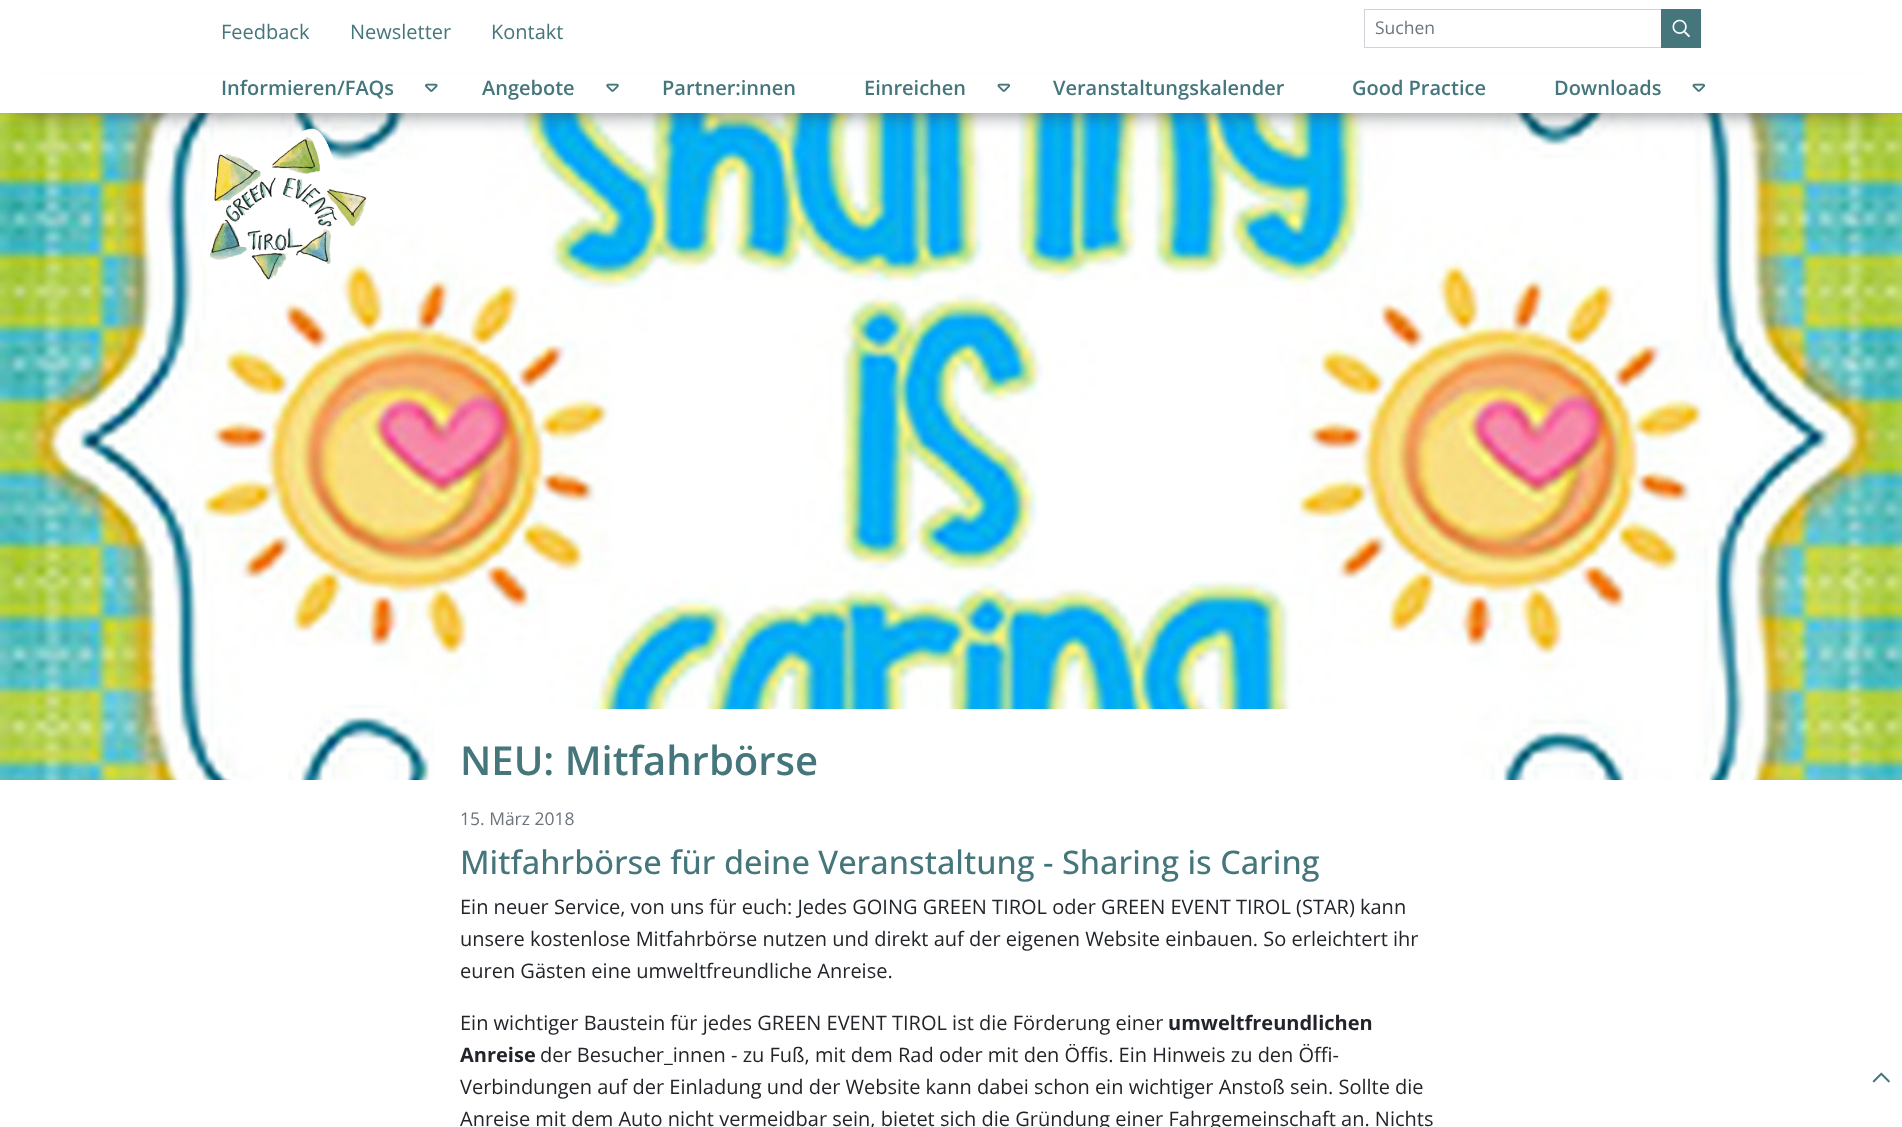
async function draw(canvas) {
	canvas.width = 1902;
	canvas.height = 1127;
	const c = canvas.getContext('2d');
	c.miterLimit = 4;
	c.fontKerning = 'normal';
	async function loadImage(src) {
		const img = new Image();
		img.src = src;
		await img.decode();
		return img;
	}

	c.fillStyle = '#fff';
	c.fillRect(0, 0, 1902, 1127);
	c.font = '20px Open Sans';
	c.fillStyle = '#45767b';
	for (const [text, x, y] of [
		['Feedback', 221, 39],
		['Newsletter', 350, 39],
		['Kontakt', 491, 39],
	]) {
		c.fillText(text, x, y);
	}
	c.strokeStyle = '#ced4da';
	c.strokeRect(1364.5, 9.5, 298, 38);
	c.font = '17.5px Open Sans';
	c.fillStyle = '#6c757d';
	c.fillText('Suchen', 1375, 34);
	c.fillStyle = '#45767b';
	c.fillRect(1661, 9, 40, 39);
	c.drawImage(await loadImage('img1.png'), 1672, 19, 18, 19);
	c.drawImage(await loadImage('img5.png'), 0, 113, 1902, 667);
	c.drawImage(await loadImage('img6.png'), 202, 128, 165, 152);
	c.fillStyle = '#343a40b3';
	c.filter = 'blur(10px)';
	c.beginPath();
	c.rect(20, 96, 1863, 17);
	c.fill();
	c.filter = 'none';
	c.fillStyle = '#fff';
	c.fillRect(1, 75, 1901, 38);
	c.font = '600 20px Open Sans';
	c.fillStyle = '#45767b';
	c.fillText('Informieren/FAQs', 221, 95);
	c.drawImage(await loadImage('img2.png'), 425, 83, 13, 9);
	c.fillText('Angebote', 482, 95);
	c.drawImage(await loadImage('img3.png'), 606, 83, 13, 9);
	c.fillText('Partner:innen', 662, 95);
	c.fillText('Einreichen', 864, 95);
	c.drawImage(await loadImage('img4.png'), 997, 83, 14, 9);
	for (const [text, x, y] of [
		['Veranstaltungskalender', 1053, 95],
		['Good Practice', 1352, 95],
		['Downloads', 1554, 95],
	]) {
		c.fillText(text, x, y);
	}
	c.drawImage(await loadImage('img4.png'), 1692, 83, 14, 9);
	c.fillStyle = '#fff';
	c.fillRect(435, 709, 906, 71);
	c.font = '600 40px Open Sans';
	c.fillStyle = '#45767b';
	c.fillText('NEU: Mitfahrbörse', 460, 775);
	c.font = '17.5px Open Sans';
	c.fillStyle = '#6c757d';
	c.fillText('15. März 2018', 460, 825);
	c.font = '500 32.5px Open Sans';
	c.fillStyle = '#45767b';
	c.fillText('Mitfahrbörse für deine Veranstaltung - Sharing is Caring', 460, 874);
	c.font = '20px Open Sans';
	c.fillStyle = '#212529';
	for (const [text, x, y] of [
		['Ein neuer Service, von uns für euch: Jedes GOING GREEN TIROL oder GREEN EVENT TIROL (STAR) kann', 460, 914],
		['unsere kostenlose Mitfahrbörse nutzen und direkt auf der eigenen Website einbauen. So erleichtert ihr', 460, 946],
		['euren Gästen eine umweltfreundliche Anreise.', 460, 978],
		['Ein wichtiger Baustein für jedes GREEN EVENT TIROL ist die Förderung einer', 460, 1030],
	]) {
		c.fillText(text, x, y);
	}
	c.font = 'bold 20px Open Sans';
	c.fillText('umweltfreundlichen', 1168, 1030);
	c.fillText('Anreise', 460, 1062);
	c.font = '20px Open Sans';
	for (const [text, x, y] of [
		['der Besucher_innen - zu Fuß, mit dem Rad oder mit den Öffis. Ein Hinweis zu den Öffi-', 540, 1062],
		['Verbindungen auf der Einladung und der Website kann dabei schon ein wichtiger Anstoß sein. Sollte die', 460, 1094],
		['Anreise mit dem Auto nicht vermeidbar sein, bietet sich die Gründung einer Fahrgemeinschaft an. Nichts', 460, 1126],
	]) {
		c.fillText(text, x, y);
	}
	c.drawImage(await loadImage('img7.png'), 1872, 1072, 18, 11);
}

draw(document.querySelector('canvas'));
